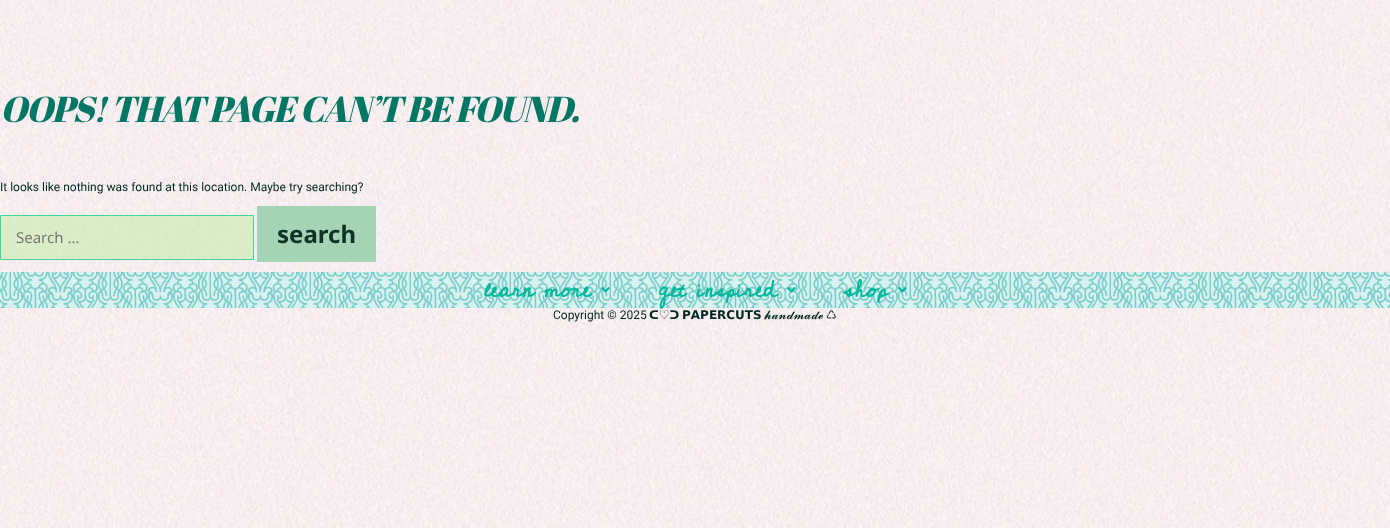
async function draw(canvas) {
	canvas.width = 1390;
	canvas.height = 528;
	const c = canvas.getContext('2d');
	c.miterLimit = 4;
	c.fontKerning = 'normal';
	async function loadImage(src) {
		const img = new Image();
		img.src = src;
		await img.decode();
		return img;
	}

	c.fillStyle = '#fff';
	c.fillRect(0, 0, 1390, 528);
	c.drawImage(await loadImage('img1.png'), 0, 0, 1390, 528);
	c.letterSpacing = '-1.2px';
	c.font = 'italic 36px Abril Fatface';
	c.fillStyle = '#007765';
	c.fillText('OOPS! THAT PAGE CAN’T BE FOUND.', 0, 122);
	c.letterSpacing = '0px';
	c.font = '12px Roboto';
	c.fillStyle = '#002923';
	c.fillText('It looks like nothing was found at this location. Maybe try searching?', 0, 191);
	c.fillStyle = '#c6ecae99';
	c.beginPath();
	c.rect(0.5, 215.5, 253, 44);
	c.fill();
	c.strokeStyle = '#42d396';
	c.stroke();
	c.font = '15px Noto Sans';
	c.fillStyle = '#757575';
	c.fillText('Search …', 16, 243);
	c.fillStyle = '#a4d4b4';
	c.fillRect(257, 206, 119, 56);
	c.font = 'bold 24px Noto Sans';
	c.fillStyle = '#0c3323';
	c.fillText('search', 277, 243);
	c.drawImage(await loadImage('img2.png'), 0, 272, 1390, 36);
	c.font = 'bold 24px Cedarville Cursive';
	c.fillStyle = '#00b89c';
	c.fillText('learn more', 484, 297);
	c.drawImage(await loadImage('img3.png'), 601, 287, 9, 6);
	c.fillText('get inspired', 658, 297);
	c.drawImage(await loadImage('img4.png'), 787, 287, 9, 6);
	c.fillText('shop', 844, 297);
	c.drawImage(await loadImage('img5.png'), 898, 287, 9, 6);
	c.font = '12px Roboto';
	c.fillStyle = '#002923';
	c.fillText('Copyright © 2025', 553, 319);
	c.font = 'bold 12px DejaVu Sans';
	c.fillText('ᑕ♡ᑐ', 649, 319);
	c.fillText('𝗣𝗔𝗣𝗘𝗥𝗖𝗨𝗧𝗦', 682, 319);
	c.font = '12px FreeSerif';
	c.fillText('𝓱𝓪𝓷𝓭𝓶𝓪𝓭𝓮', 764, 319);
	c.font = 'bold 12px DejaVu Sans';
	c.fillText('♺', 826, 319);
}

draw(document.querySelector('canvas'));
